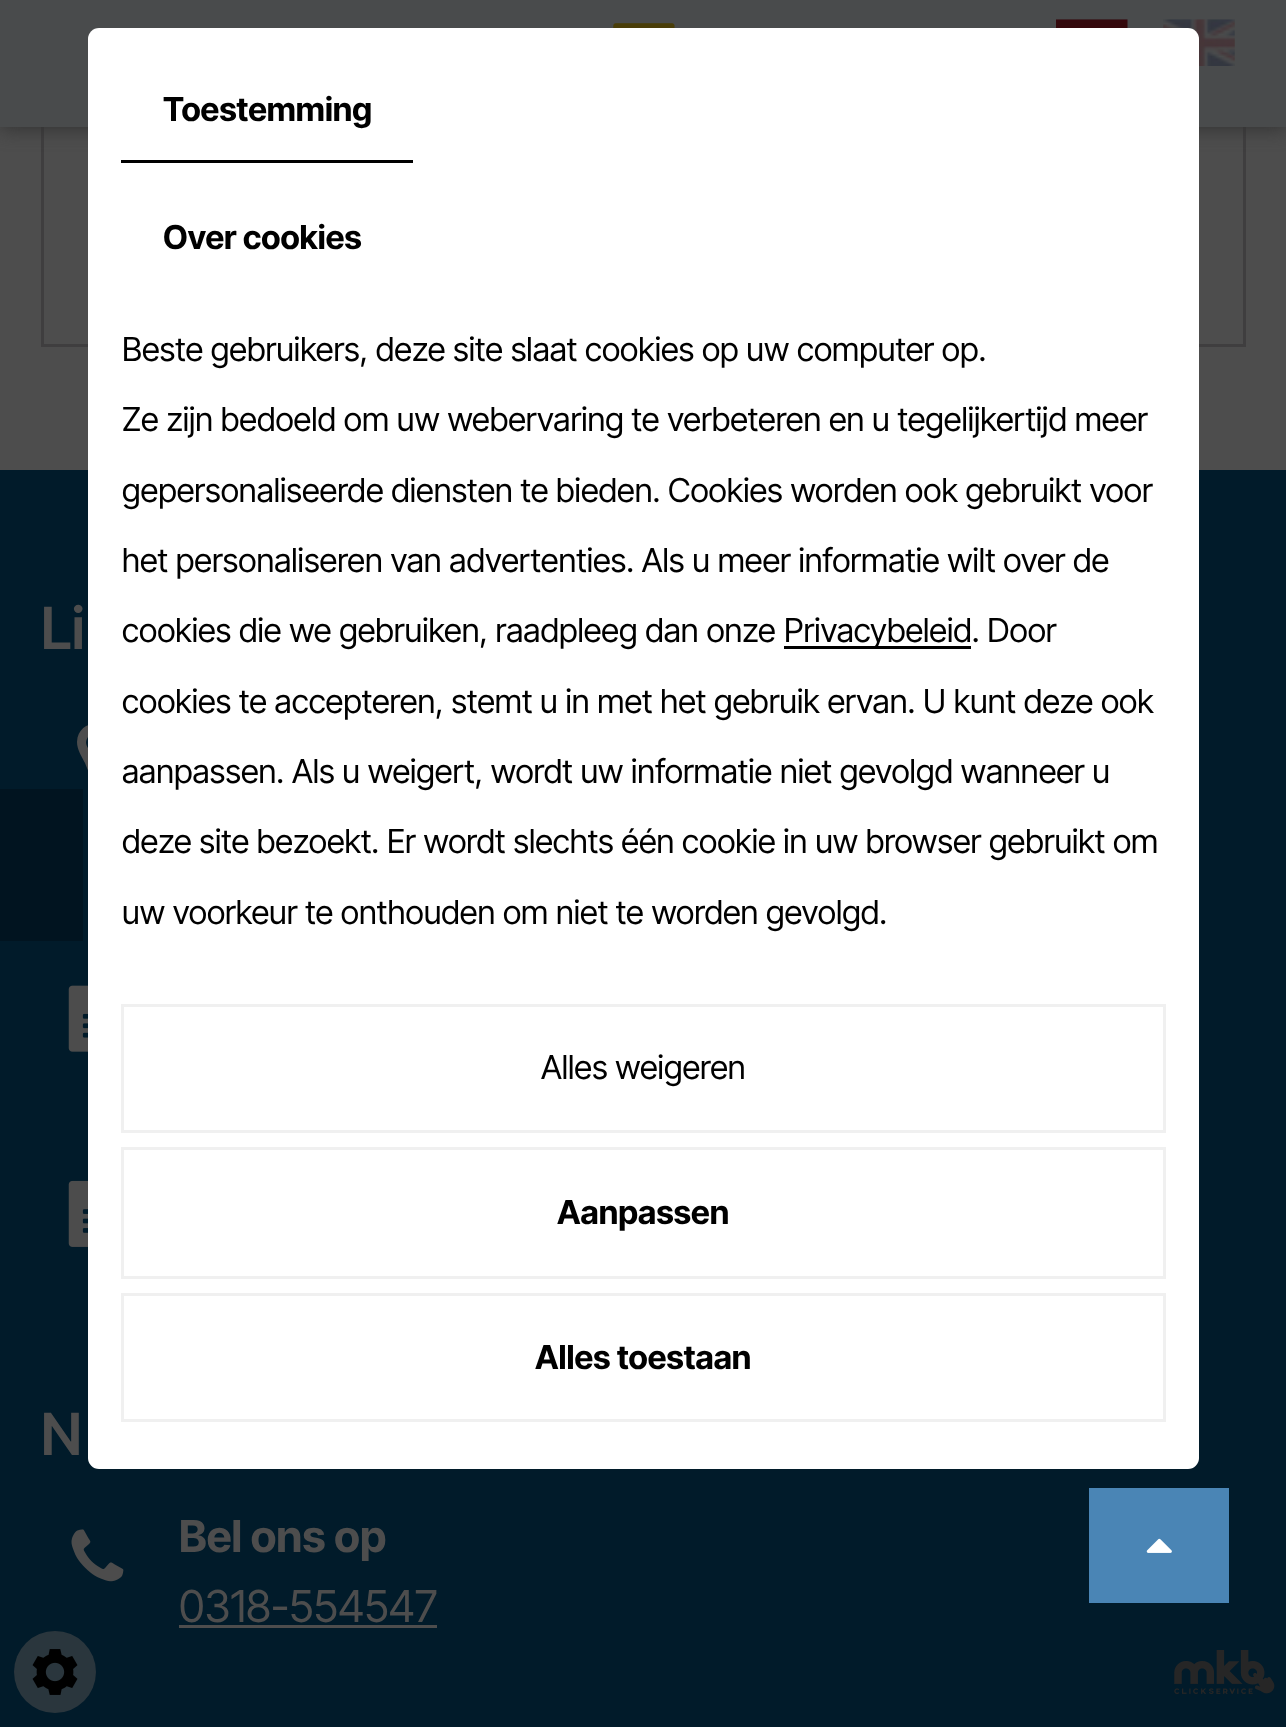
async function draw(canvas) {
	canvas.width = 1286;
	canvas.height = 1727;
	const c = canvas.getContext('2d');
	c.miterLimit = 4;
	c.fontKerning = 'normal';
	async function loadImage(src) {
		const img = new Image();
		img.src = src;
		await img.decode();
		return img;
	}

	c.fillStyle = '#4d4d4d';
	c.fillRect(0, 0, 1286, 1727);
	c.strokeStyle = '#3f3e3f';
	c.lineWidth = 3;
	c.strokeRect(42.5, -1.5, 1202, 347);
	c.fillStyle = '#323232';
	c.filter = 'blur(9.5px)';
	c.beginPath();
	c.rect(0, 3, 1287, 126);
	c.fill();
	c.filter = 'none';
	c.fillStyle = '#494b4c';
	c.fillRect(0, 0, 1286, 127);
	c.drawImage(await loadImage('img3.png'), 1163, 19, 72, 47);
	c.fillStyle = '#011b2a';
	c.fillRect(0, 470, 1286, 1257);
	c.fillStyle = '#4d4d4d';
	c.beginPath();
	c.moveTo(103, 749);
	c.bezierCurveTo(111, 740, 98, 727, 89, 736);
	c.bezierCurveTo(80, 745, 94, 758, 103, 749);
	c.closePath();
	c.moveTo(115, 742);
	c.bezierCurveTo(115, 747, 113, 750, 111, 754);
	c.lineTo(100, 778);
	c.lineTo(97, 780);
	c.bezierCurveTo(92, 781, 91, 776, 89, 773);
	c.lineTo(85, 763);
	c.bezierCurveTo(82, 757, 77, 750, 77, 742);
	c.bezierCurveTo(78, 717, 115, 718, 115, 742);
	c.closePath();
	c.fill();
	c.fillStyle = '#fff';
	c.beginPath();
	c.roundRect(88, 28, 1111, 1441, 11);
	c.fill();
	c.fillStyle = '#000';
	c.fillRect(121, 160, 292, 3);
	c.font = 'bold 33px Inter Tight';
	c.fillText('Toestemming', 163, 121);
	c.fillText('Over cookies', 163, 249);
	c.font = '33px Inter Tight';
	for (const [text, x, y] of [
		['Beste gebruikers, deze site slaat cookies op uw computer op.', 122, 361],
		['Ze zijn bedoeld om uw webervaring te verbeteren en u tegelijkertijd meer', 122, 431],
		['gepersonaliseerde diensten te bieden. Cookies worden ook gebruikt voor', 122, 502],
		['het personaliseren van advertenties. Als u meer informatie wilt over de', 122, 572],
		['cookies die we gebruiken, raadpleeg dan onze', 122, 642],
	]) {
		c.fillText(text, x, y);
	}
	c.fillRect(784, 646, 187, 3);
	for (const [text, x, y] of [
		['Privacybeleid. Door', 784, 642],
		['cookies te accepteren, stemt u in met het gebruik ervan. U kunt deze ook', 122, 713],
		['aanpassen. Als u weigert, wordt uw informatie niet gevolgd wanneer u', 122, 783],
		['deze site bezoekt. Er wordt slechts één cookie in uw browser gebruikt om', 122, 853],
		['uw voorkeur te onthouden om niet te worden gevolgd.', 122, 924],
	]) {
		c.fillText(text, x, y);
	}
	c.strokeStyle = '#f0f0f0';
	c.strokeRect(122.5, 1005.5, 1042, 126);
	c.fillText('Alles weigeren', 541, 1079);
	c.strokeRect(122.5, 1148.5, 1042, 129);
	c.font = 'bold 33px Inter Tight';
	c.fillText('Aanpassen', 557, 1224);
	c.strokeRect(122.5, 1294.5, 1042, 126);
	c.fillText('Alles toestaan', 535, 1369);
	c.fillStyle = '#011420';
	c.fillRect(0, 789, 83, 152);
	c.drawImage(await loadImage('img1.png'), 613, 23, 62, 5);
	c.drawImage(await loadImage('img2.png'), 1056, 19, 72, 9);
	c.font = '600 58px Inter Tight';
	c.fillStyle = '#4d4d4d';
	c.fillText('Li', 41, 649);
	c.drawImage(await loadImage('img4.png'), 68, 985, 20, 67);
	c.drawImage(await loadImage('img5.png'), 68, 1180, 20, 67);
	c.fillText('N', 41, 1455);
	c.drawImage(await loadImage('img6.png'), 71, 1529, 53, 53);
	c.font = 'bold 44px Inter Tight';
	c.fillText('Bel ons op', 179, 1552);
	c.font = '44px Inter Tight';
	c.fillText('0318-554547', 179, 1622);
	c.fillRect(179, 1625, 258, 3);
	c.fillStyle = '#2a363d';
	c.beginPath();
	c.arc(55, 1672, 41, 0, 2 * Math.PI);
	c.fill();
	c.drawImage(await loadImage('img7.png'), 32, 1649, 46, 46);
	c.drawImage(await loadImage('img8.png'), 1174, 1650, 101, 44);
	c.fillStyle = '#4a85b5';
	c.fillRect(1089, 1488, 140, 115);
	c.drawImage(await loadImage('img9.png'), 1146, 1538, 26, 15);
}

draw(document.querySelector('canvas'));
